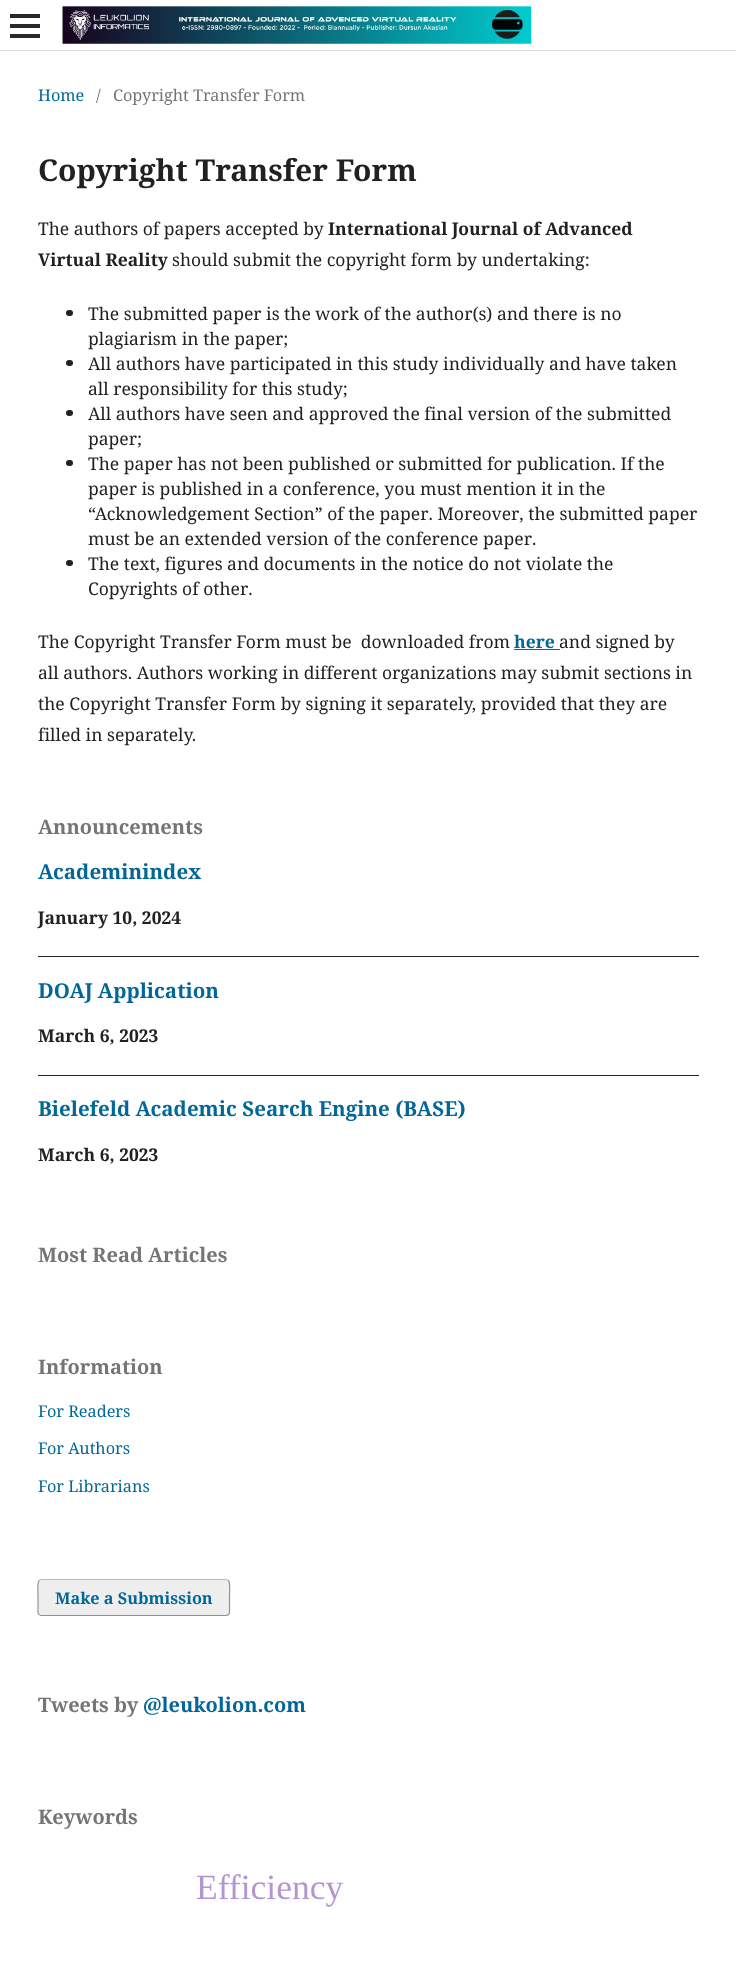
async function draw(canvas) {
	canvas.width = 736;
	canvas.height = 1965;
	const c = canvas.getContext('2d');
	c.miterLimit = 4;
	c.fontKerning = 'normal';
	async function loadImage(src) {
		const img = new Image();
		img.src = src;
		await img.decode();
		return img;
	}

	c.fillStyle = '#fff';
	c.fillRect(0, 0, 736, 1965);
	for (const [x, y, w, h, color] of [
		[0, 50, 736, 1, '#ddd'],
		[10, 34, 30, 4, '#292929'],
		[10, 14, 30, 4, '#292929'],
		[10, 24, 30, 4, '#292929'],
	]) {
		c.fillStyle = color;
		c.fillRect(x, y, w, h);
	}
	c.drawImage(await loadImage('img1.png'), 62, 6, 470, 38);
	c.font = '16.25px Noto Serif';
	c.fillStyle = '#006798';
	c.fillText('Home', 38, 101);
	c.fillStyle = '#757575';
	c.fillText('/', 96, 101);
	c.fillText('Copyright Transfer Form', 113, 101);
	c.font = 'bold 30px Noto Serif';
	c.fillStyle = '#212121';
	c.fillText('Copyright Transfer Form', 38, 181);
	c.font = '17.5px Noto Serif';
	c.fillText('The authors of papers accepted by', 38, 235);
	c.font = 'bold 17.5px Noto Serif';
	c.fillText('International Journal of Advanced', 328, 235);
	c.fillText('Virtual Reality', 38, 266);
	c.font = '17.5px Noto Serif';
	c.fillText('should submit the copyright form by undertaking:', 172, 266);
	c.beginPath();
	c.roundRect(66, 310, 7, 6, 3);
	c.fill();
	c.fillText('The submitted paper is the work of the author(s) and there is no', 88, 320);
	c.fillText('plagiarism in the paper;', 88, 345);
	c.beginPath();
	c.roundRect(66, 360, 7, 6, 3);
	c.fill();
	c.fillText('All authors have participated in this study individually and have taken', 88, 370);
	c.fillText('all responsibility for this study;', 88, 395);
	c.beginPath();
	c.roundRect(66, 410, 7, 6, 3);
	c.fill();
	c.fillText('All authors have seen and approved the final version of the submitted', 88, 420);
	c.fillText('paper;', 88, 445);
	c.beginPath();
	c.roundRect(66, 460, 7, 6, 3);
	c.fill();
	for (const [text, x, y] of [
		['The paper has not been published or submitted for publication. If the', 88, 470],
		['paper is published in a conference, you must mention it in the', 88, 495],
		['“Acknowledgement Section” of the paper. Moreover, the submitted paper', 88, 520],
		['must be an extended version of the conference paper.', 88, 545],
	]) {
		c.fillText(text, x, y);
	}
	c.beginPath();
	c.roundRect(66, 560, 7, 6, 3);
	c.fill();
	for (const [text, x, y] of [
		['The text, figures and documents in the notice do not violate the', 88, 570],
		['Copyrights of other.', 88, 595],
		['The Copyright Transfer Form must be  downloaded from', 38, 648],
	]) {
		c.fillText(text, x, y);
	}
	c.font = 'bold 17.5px Noto Serif';
	c.fillStyle = '#006798';
	c.fillText('here', 514, 648);
	c.fillRect(514, 649, 46, 1);
	c.font = '17.5px Noto Serif';
	c.fillStyle = '#212121';
	for (const [text, x, y] of [
		['and signed by', 559, 648],
		['all authors. Authors working in different organizations may submit sections in', 38, 679],
		['the Copyright Transfer Form by signing it separately, provided that they are', 38, 710],
		['filled in separately.', 38, 741],
	]) {
		c.fillText(text, x, y);
	}
	c.font = 'bold 20px Noto Serif';
	c.fillStyle = '#757575';
	c.fillText('Announcements', 38, 834);
	c.fillStyle = '#212121';
	c.fillRect(38, 956, 661, 1);
	c.font = 'bold 20.5px Noto Serif';
	c.fillStyle = '#006798';
	c.fillText('Academinindex', 38, 879);
	c.font = 'bold 17.5px Noto Serif';
	c.fillStyle = '#212121';
	c.fillText('January 10, 2024', 38, 924);
	c.fillRect(38, 1075, 661, 1);
	c.font = 'bold 20.5px Noto Serif';
	c.fillStyle = '#006798';
	c.fillText('DOAJ Application', 38, 998);
	c.font = 'bold 17.5px Noto Serif';
	c.fillStyle = '#212121';
	c.fillText('March 6, 2023', 38, 1042);
	c.font = 'bold 20.5px Noto Serif';
	c.fillStyle = '#006798';
	c.fillText('Bielefeld Academic Search Engine (BASE)', 38, 1116);
	c.font = 'bold 17.5px Noto Serif';
	c.fillStyle = '#212121';
	c.fillText('March 6, 2023', 38, 1161);
	c.font = 'bold 20px Noto Serif';
	c.fillStyle = '#757575';
	c.fillText('Most Read Articles', 38, 1262);
	c.fillText('Information', 38, 1374);
	c.font = '16.25px Noto Serif';
	c.fillStyle = '#006798';
	for (const [text, x, y] of [
		['For Readers', 38, 1417],
		['For Authors', 38, 1454],
		['For Librarians', 38, 1492],
	]) {
		c.fillText(text, x, y);
	}
	c.fillStyle = '#eee';
	c.beginPath();
	c.roundRect(38, 1579, 192, 37, 4);
	c.fill();
	c.beginPath();
	c.moveTo(39, 1580.5);
	c.lineTo(41, 1579.5);
	c.lineTo(226, 1579.5);
	c.lineTo(228.5, 1580.5);
	c.strokeStyle = '#bbb';
	c.lineWidth = 1.2;
	c.stroke();
	c.beginPath();
	c.moveTo(228.5, 1580.5);
	c.bezierCurveTo(230.5, 1582.5, 229.5, 1594.5, 229.5, 1597.5);
	c.lineTo(229.5, 1607.5);
	c.bezierCurveTo(229.5, 1610, 230.5, 1615.5, 226, 1615.5);
	c.lineTo(41, 1615.5);
	c.bezierCurveTo(37, 1615.5, 38, 1610, 38, 1607.5);
	c.lineTo(38, 1597.5);
	c.bezierCurveTo(38, 1594.5, 37, 1582.5, 39, 1580.5);
	c.strokeStyle = '#00000066';
	c.stroke();
	c.font = 'bold 16.25px Noto Serif';
	c.fillStyle = '#006798';
	c.fillText('Make a Submission', 55, 1604);
	c.font = 'bold 20px Noto Serif';
	c.fillStyle = '#757575';
	c.fillText('Tweets by', 38, 1712);
	c.fillStyle = '#006798';
	c.fillText('@leukolion.com', 143, 1712);
	c.fillStyle = '#757575';
	c.fillText('Keywords', 38, 1824);
	c.font = '35.5px Liberation Serif';
	c.fillStyle = '#b495d1';
	c.fillText('Efficiency', 196, 1899);
}

draw(document.querySelector('canvas'));
